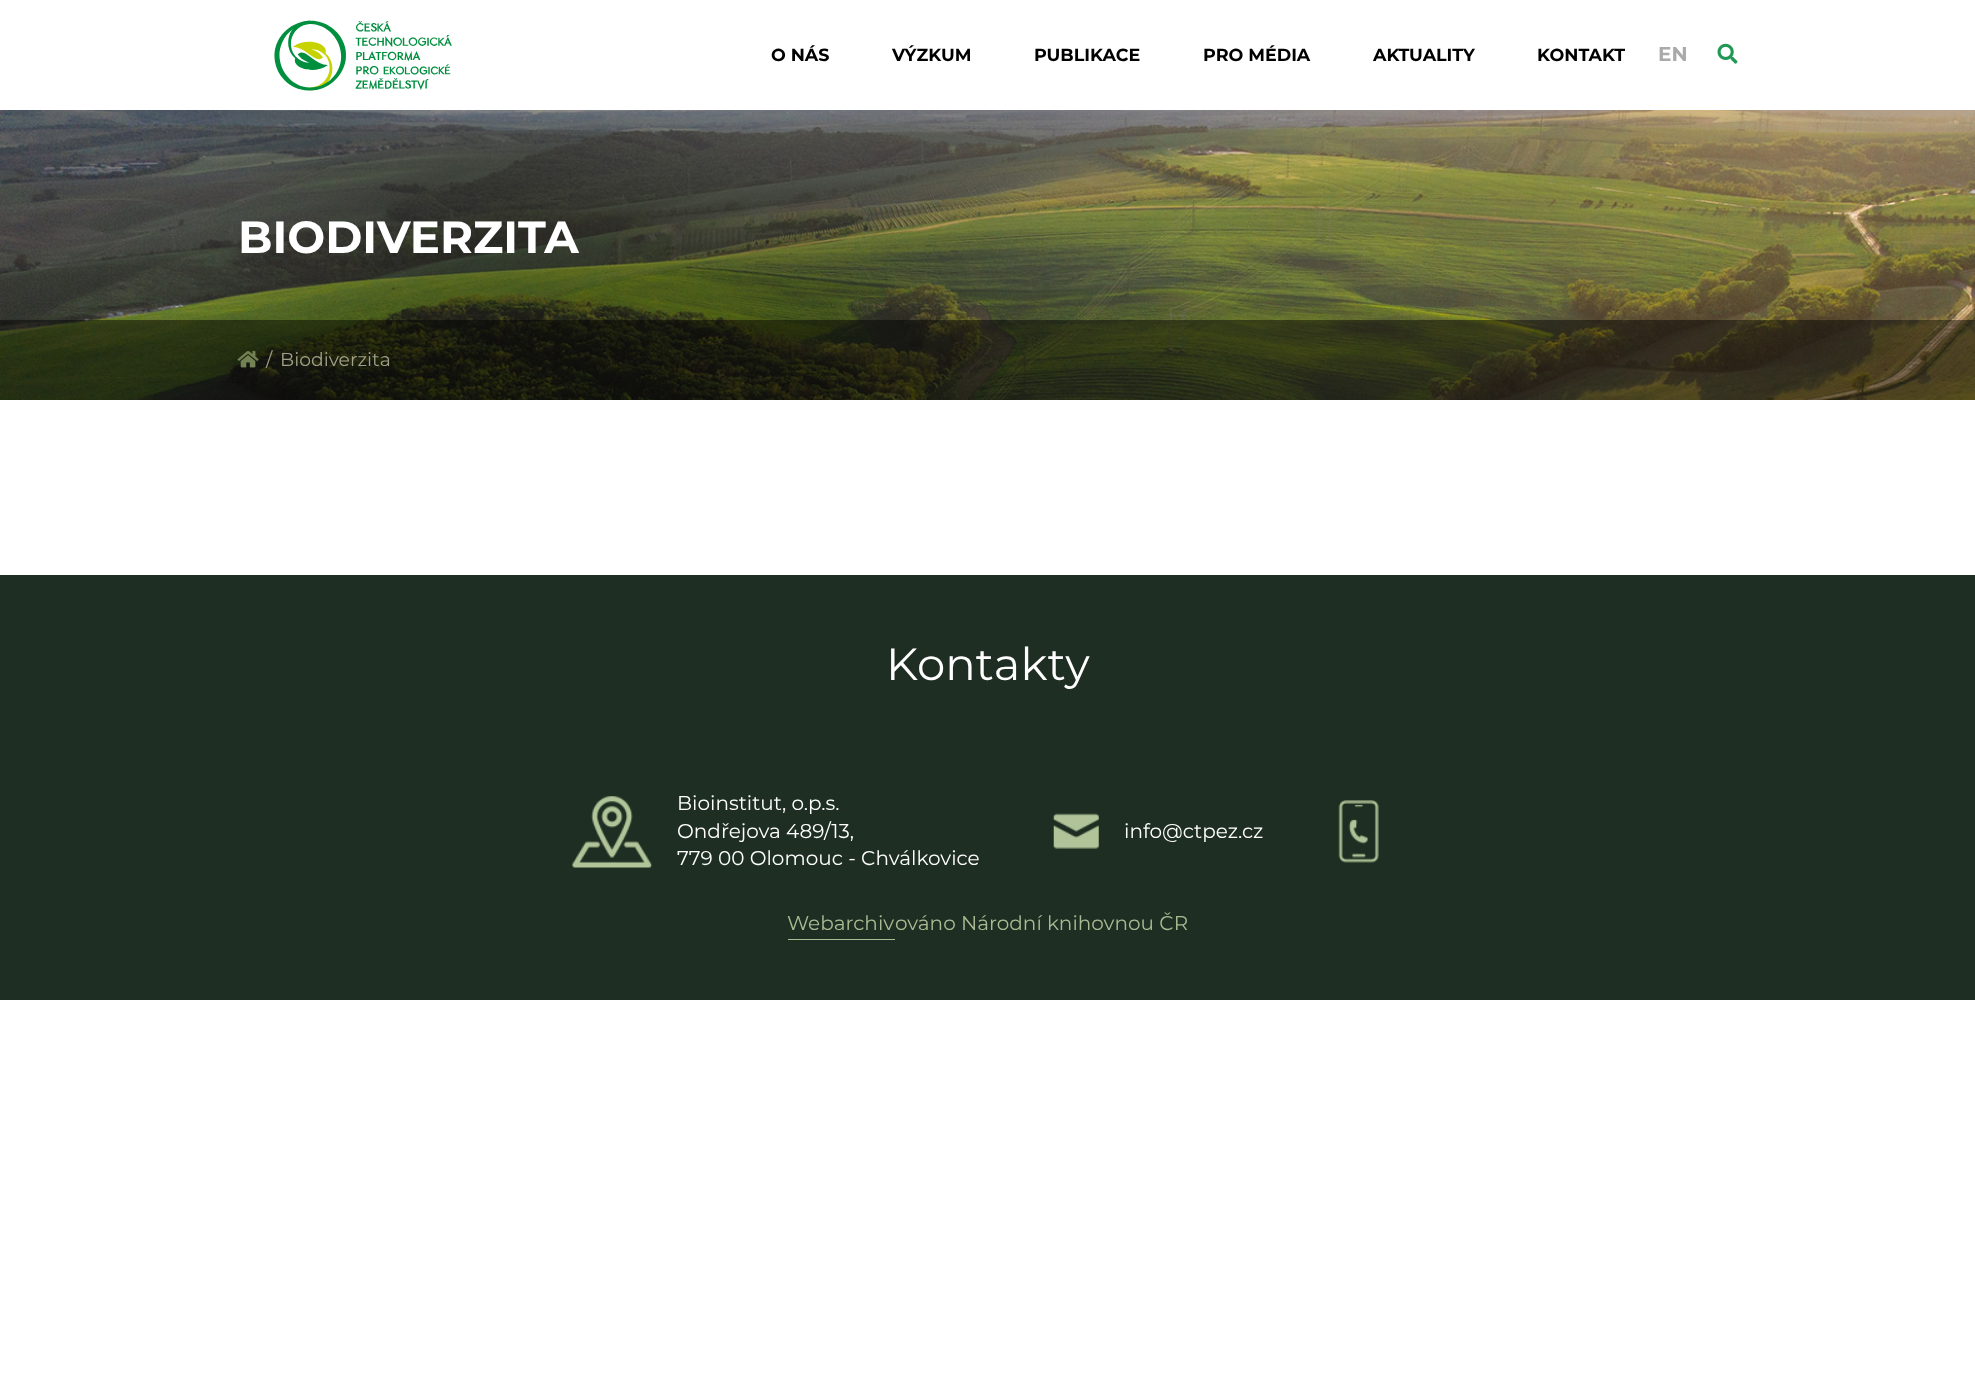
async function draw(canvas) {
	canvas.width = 1975;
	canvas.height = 1374;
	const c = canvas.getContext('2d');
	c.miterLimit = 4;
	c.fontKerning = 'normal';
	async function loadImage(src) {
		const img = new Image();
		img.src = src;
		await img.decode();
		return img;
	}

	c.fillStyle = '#fff';
	c.fillRect(0, 0, 1975, 1374);
	c.drawImage(await loadImage('img1.png'), 274, 20, 178, 71);
	c.font = 'bold 17.5px Montserrat';
	c.fillStyle = '#000';
	for (const [text, x, y] of [
		['O NÁS', 771, 61],
		['VÝZKUM', 892, 61],
		['PUBLIKACE', 1034, 61],
		['PRO MÉDIA', 1203, 61],
		['AKTUALITY', 1373, 61],
		['KONTAKT', 1537, 61],
	]) {
		c.fillText(text, x, y);
	}
	c.font = 'bold 20px Montserrat';
	c.fillStyle = '#aaa';
	c.fillText('EN', 1658, 61);
	c.drawImage(await loadImage('img2.png'), 1717, 43, 21, 21);
	c.drawImage(await loadImage('img3.png'), 0, 110, 1975, 290);
	c.font = 'bold 45px Montserrat';
	c.fillStyle = '#fff';
	c.fillText('BIODIVERZITA', 238, 253);
	c.fillStyle = '#00000075';
	c.fillRect(0, 320, 1975, 80);
	c.drawImage(await loadImage('img4.png'), 237, 351, 22, 17);
	c.font = '18.75px Montserrat';
	c.fillStyle = '#a0a185';
	c.fillText('/', 266, 366);
	c.fillText('Biodiverzita', 280, 366);
	c.fillStyle = '#1e2e22';
	c.fillRect(0, 575, 1975, 425);
	c.font = '45px Montserrat';
	c.fillStyle = '#fff';
	c.fillText('Kontakty', 886, 680);
	c.drawImage(await loadImage('img5.png'), 572, 796, 80, 72);
	c.font = '20px Montserrat';
	for (const [text, x, y] of [
		['Bioinstitut, o.p.s.', 677, 810],
		['Ondřejova 489/13,', 677, 838],
		['779 00 Olomouc - Chválkovice', 677, 865],
	]) {
		c.fillText(text, x, y);
	}
	c.drawImage(await loadImage('img6.png'), 1053, 813, 46, 36);
	c.fillText('info@ctpez.cz', 1124, 838);
	c.drawImage(await loadImage('img7.png'), 1338, 800, 41, 63);
	c.fillStyle = '#aaba93';
	c.fillText('Webarchiv', 787, 930);
	c.fillRect(788, 939, 107, 1);
	c.fillText('ováno Národní knihovnou ČR', 895, 930);
}

draw(document.querySelector('canvas'));
